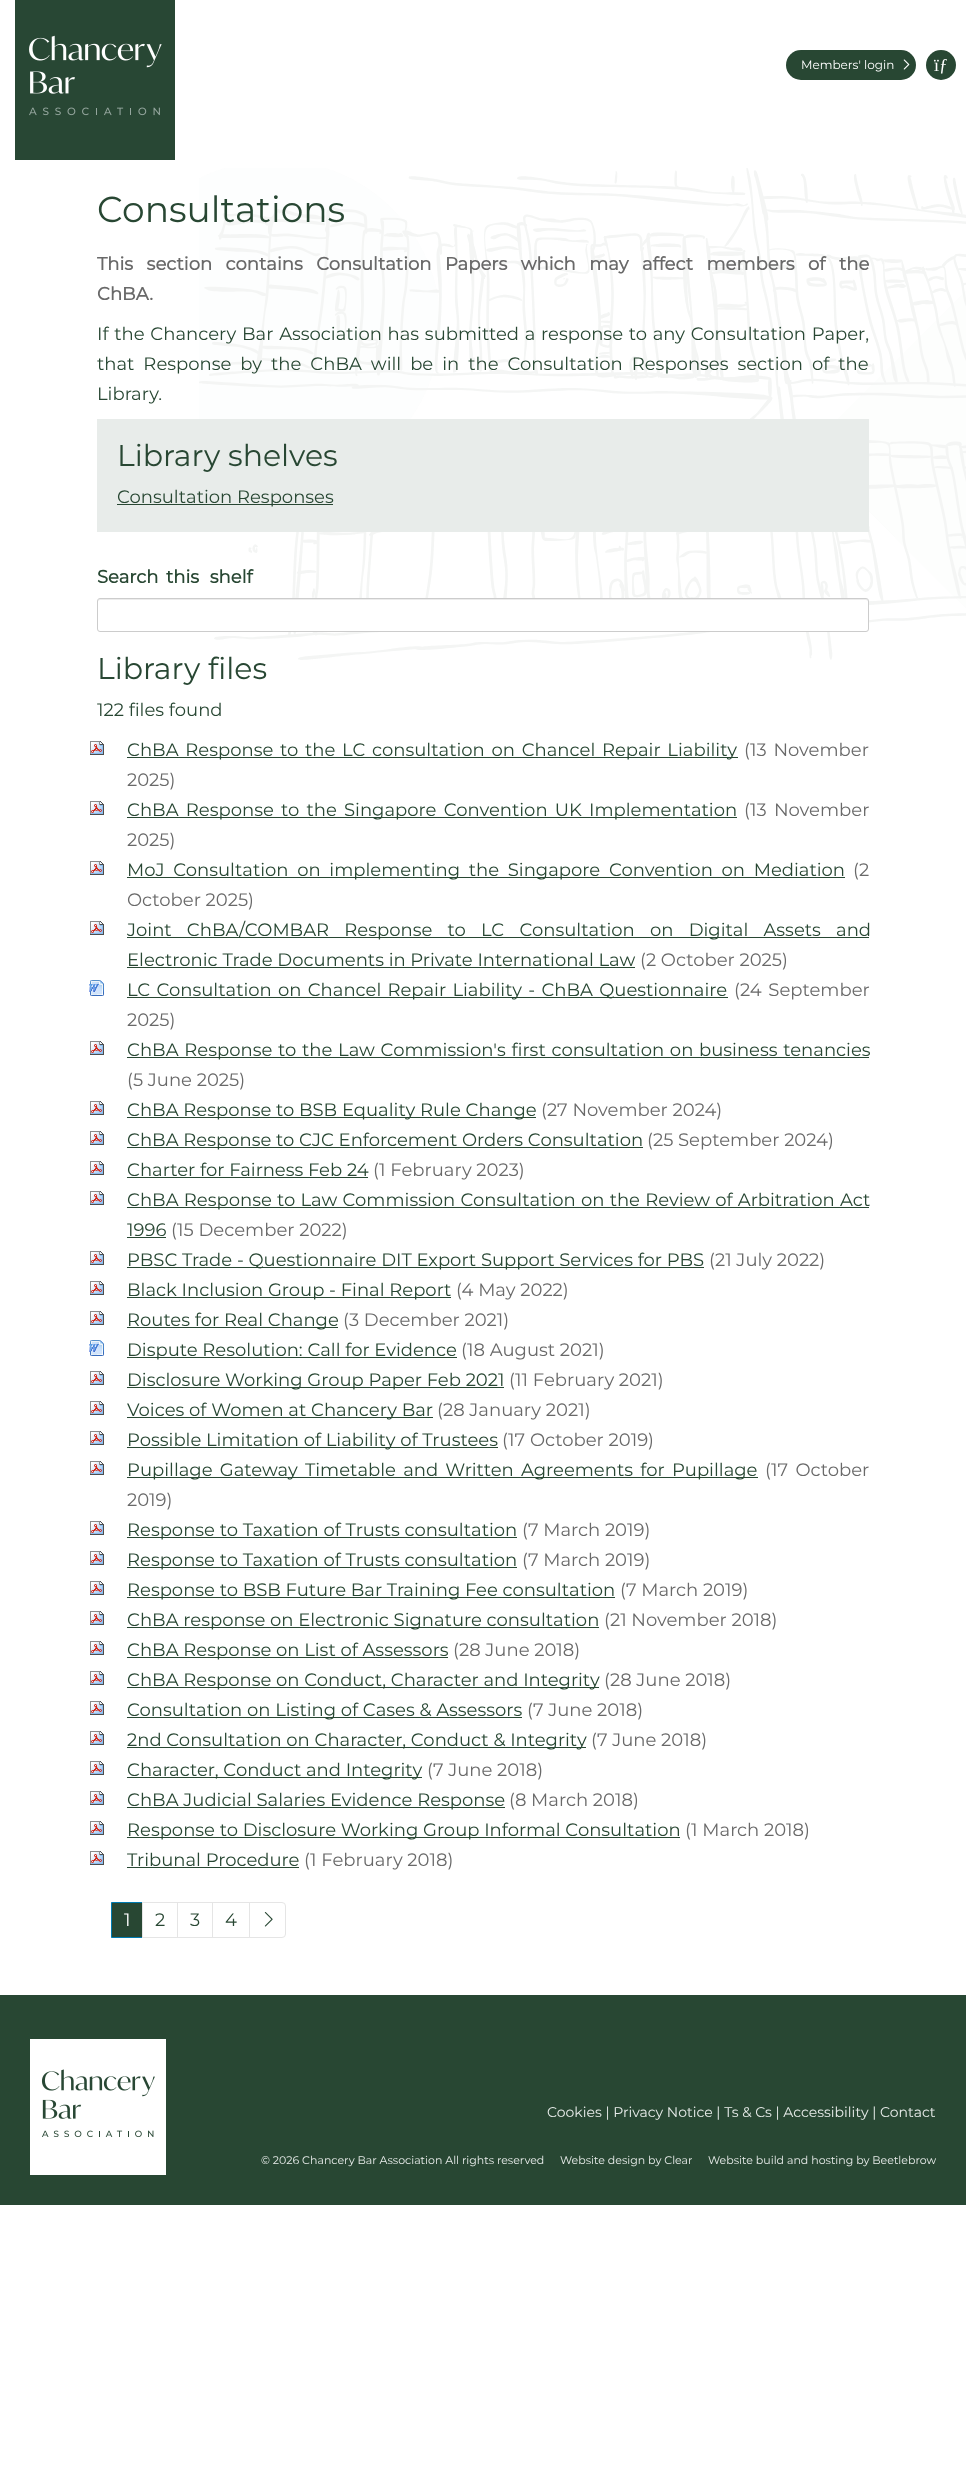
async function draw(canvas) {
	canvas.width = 966;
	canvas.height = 2478;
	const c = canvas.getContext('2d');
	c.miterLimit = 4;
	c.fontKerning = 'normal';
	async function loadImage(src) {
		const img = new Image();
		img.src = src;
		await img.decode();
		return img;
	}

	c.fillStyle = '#fff';
	c.fillRect(0, 0, 966, 2478);
	c.drawImage(await loadImage('img1.png'), 15, 0, 160, 160);
	c.fillStyle = '#284733';
	c.beginPath();
	c.roundRect(786, 50, 130, 30, 15);
	c.fill();
	c.font = '12px Montserrat';
	c.fillStyle = '#fff';
	c.fillText('Members\' login', 801, 69);
	c.drawImage(await loadImage('img2.png'), 903, 59, 7, 11);
	c.fillStyle = '#284733';
	c.beginPath();
	c.arc(941, 65, 15, 0, 2 * Math.PI);
	c.fill();
	c.font = '18px Liberation Serif';
	c.fillStyle = '#fff';
	c.fillText('ïƒ', 934, 71);
	c.drawImage(await loadImage('img3.png'), 199, 168, 767, 492);
	c.font = '36px Montserrat';
	c.fillStyle = '#284733';
	c.fillText('Consultations', 97, 222);
	c.wordSpacing = '8.75px';
	c.font = 'bold 18px Montserrat';
	c.fillStyle = '#696969';
	c.fillText('This section contains Consultation Papers which may affect members of the', 97, 270);
	c.wordSpacing = '0px';
	c.fillText('ChBA.', 97, 300);
	c.wordSpacing = '1px';
	c.font = '18px Montserrat';
	c.fillStyle = '#284733';
	c.fillText('If the Chancery Bar Association has submitted a response to any Consultation Paper,', 97, 340);
	c.wordSpacing = '4.25px';
	c.fillText('that Response by the ChBA will be in the Consultation Responses section of the', 97, 370);
	c.wordSpacing = '0px';
	c.fillText('Library.', 97, 400);
	c.fillStyle = '#e8ecea';
	c.fillRect(97, 419, 772, 113);
	c.font = '30px Montserrat';
	c.fillStyle = '#284733';
	c.fillText('Library shelves', 117, 466);
	c.fillRect(117, 504, 216, 1);
	c.font = '18px Montserrat';
	c.fillText('Consultation Responses', 117, 503);
	c.font = 'bold 18px Montserrat';
	c.fillText('Search', 97, 583);
	c.wordSpacing = '6px';
	c.fillText('this shelf', 166, 583);
	c.fillStyle = '#fff';
	c.beginPath();
	c.roundRect(97, 598, 772, 34, 3);
	c.fill();
	c.fillStyle = '#ececec';
	c.beginPath();
	c.moveTo(100, 600);
	c.lineTo(866, 600);
	c.bezierCurveTo(867, 600, 868, 601, 868, 602);
	c.bezierCurveTo(868, 601, 868, 599, 866, 599);
	c.lineTo(100, 599);
	c.bezierCurveTo(98, 599, 98, 601, 98, 602);
	c.bezierCurveTo(98, 601, 99, 600, 100, 600);
	c.closePath();
	c.fill();
	c.beginPath();
	c.roundRect(97.5, 598.5, 771, 33, 2.5);
	c.strokeStyle = '#ccc';
	c.stroke();
	c.wordSpacing = '0px';
	c.font = '30px Montserrat';
	c.fillStyle = '#284733';
	c.fillText('Library files', 97, 679);
	c.font = '18px Montserrat';
	c.fillText('122 files found', 97, 716);
	c.drawImage(await loadImage('img4.png'), 90, 741, 14, 14);
	c.fillRect(127, 757, 611, 1);
	c.wordSpacing = '2px';
	c.fillText('ChBA Response to the LC consultation on Chancel Repair Liability', 127, 756);
	c.fillStyle = '#696969';
	c.fillText('(13 November', 744, 756);
	c.wordSpacing = '0px';
	c.fillText('2025)', 127, 786);
	c.drawImage(await loadImage('img4.png'), 90, 801, 14, 14);
	c.fillStyle = '#284733';
	c.fillRect(127, 817, 610, 1);
	c.wordSpacing = '2.5px';
	c.fillText('ChBA Response to the Singapore Convention UK Implementation', 127, 816);
	c.fillStyle = '#696969';
	c.fillText('(13 November', 744, 816);
	c.wordSpacing = '0px';
	c.fillText('2025)', 127, 846);
	c.drawImage(await loadImage('img4.png'), 90, 861, 14, 14);
	c.fillStyle = '#284733';
	c.fillRect(127, 877, 718, 1);
	c.wordSpacing = '4px';
	c.fillText('MoJ Consultation on implementing the Singapore Convention on Mediation', 127, 876);
	c.wordSpacing = '0px';
	c.fillStyle = '#696969';
	c.fillText('(2', 853, 876);
	c.fillText('October 2025)', 127, 906);
	c.drawImage(await loadImage('img4.png'), 90, 921, 14, 14);
	c.fillStyle = '#284733';
	c.fillRect(127, 937, 742, 1);
	c.wordSpacing = '10.5px';
	c.fillText('Joint ChBA/COMBAR Response to LC Consultation on Digital Assets and', 127, 936);
	c.wordSpacing = '0px';
	c.fillText('Electronic Trade Documents in Private International Law', 127, 966);
	c.fillRect(127, 967, 508, 1);
	c.fillStyle = '#696969';
	c.fillText('(2 October 2025)', 640, 966);
	c.drawImage(await loadImage('img5.png'), 89, 980, 15, 16);
	c.fillStyle = '#284733';
	c.fillRect(127, 997, 601, 1);
	c.wordSpacing = '1.5px';
	c.fillText('LC Consultation on Chancel Repair Liability - ChBA Questionnaire', 127, 996);
	c.wordSpacing = '2px';
	c.fillStyle = '#696969';
	c.fillText('(24 September', 734, 996);
	c.wordSpacing = '0px';
	c.fillText('2025)', 127, 1026);
	c.drawImage(await loadImage('img4.png'), 90, 1041, 14, 14);
	c.fillStyle = '#284733';
	c.fillRect(127, 1057, 742, 1);
	c.wordSpacing = '1px';
	c.fillText('ChBA Response to the Law Commission\'s first consultation on business tenancies', 127, 1056);
	c.wordSpacing = '0px';
	c.fillStyle = '#696969';
	c.fillText('(5 June 2025)', 127, 1086);
	c.drawImage(await loadImage('img4.png'), 90, 1101, 14, 14);
	c.fillStyle = '#284733';
	c.fillRect(127, 1117, 409, 1);
	c.fillText('ChBA Response to BSB Equality Rule Change', 127, 1116);
	c.fillStyle = '#696969';
	c.fillText('(27 November 2024)', 541, 1116);
	c.drawImage(await loadImage('img4.png'), 90, 1131, 14, 14);
	c.fillStyle = '#284733';
	c.fillRect(127, 1147, 516, 1);
	c.fillText('ChBA Response to CJC Enforcement Orders Consultation', 127, 1146);
	c.fillStyle = '#696969';
	c.fillText('(25 September 2024)', 647, 1146);
	c.drawImage(await loadImage('img4.png'), 90, 1161, 14, 14);
	c.fillStyle = '#284733';
	c.fillText('Charter for Fairness Feb 24', 127, 1176);
	c.fillRect(127, 1177, 241, 1);
	c.fillStyle = '#696969';
	c.fillText('(1 February 2023)', 373, 1176);
	c.drawImage(await loadImage('img4.png'), 90, 1191, 14, 14);
	c.fillStyle = '#284733';
	c.fillRect(127, 1207, 742, 1);
	c.wordSpacing = '0.5px';
	c.fillText('ChBA Response to Law Commission Consultation on the Review of Arbitration Act', 127, 1206);
	c.wordSpacing = '0px';
	c.fillText('1996', 127, 1236);
	c.fillRect(127, 1237, 39, 1);
	c.fillStyle = '#696969';
	c.fillText('(15 December 2022)', 171, 1236);
	c.drawImage(await loadImage('img4.png'), 90, 1251, 14, 14);
	c.fillStyle = '#284733';
	c.fillRect(127, 1267, 577, 1);
	c.fillText('PBSC Trade - Questionnaire DIT Export Support Services for PBS', 127, 1266);
	c.fillStyle = '#696969';
	c.fillText('(21 July 2022)', 709, 1266);
	c.drawImage(await loadImage('img4.png'), 90, 1281, 14, 14);
	c.fillStyle = '#284733';
	c.fillRect(127, 1297, 324, 1);
	c.fillText('Black Inclusion Group - Final Report', 127, 1296);
	c.fillStyle = '#696969';
	c.fillText('(4 May 2022)', 456, 1296);
	c.drawImage(await loadImage('img4.png'), 90, 1311, 14, 14);
	c.fillStyle = '#284733';
	c.fillRect(127, 1327, 211, 1);
	c.fillText('Routes for Real Change', 127, 1326);
	c.fillStyle = '#696969';
	c.fillText('(3 December 2021)', 343, 1326);
	c.drawImage(await loadImage('img5.png'), 89, 1340, 15, 16);
	c.fillStyle = '#284733';
	c.fillRect(127, 1357, 330, 1);
	c.fillText('Dispute Resolution: Call for Evidence', 127, 1356);
	c.fillStyle = '#696969';
	c.fillText('(18 August 2021)', 461, 1356);
	c.drawImage(await loadImage('img4.png'), 90, 1371, 14, 14);
	c.fillStyle = '#284733';
	c.fillRect(127, 1387, 377, 1);
	c.fillText('Disclosure Working Group Paper Feb 2021', 127, 1386);
	c.fillStyle = '#696969';
	c.fillText('(11 February 2021)', 509, 1386);
	c.drawImage(await loadImage('img4.png'), 90, 1401, 14, 14);
	c.fillStyle = '#284733';
	c.fillRect(127, 1417, 306, 1);
	c.fillText('Voices of Women at Chancery Bar', 127, 1416);
	c.fillStyle = '#696969';
	c.fillText('(28 January 2021)', 437, 1416);
	c.drawImage(await loadImage('img4.png'), 90, 1431, 14, 14);
	c.fillStyle = '#284733';
	c.fillRect(127, 1447, 371, 1);
	c.fillText('Possible Limitation of Liability of Trustees', 127, 1446);
	c.fillStyle = '#696969';
	c.fillText('(17 October 2019)', 502, 1446);
	c.drawImage(await loadImage('img4.png'), 90, 1461, 14, 14);
	c.fillStyle = '#284733';
	c.fillRect(127, 1477, 631, 1);
	c.wordSpacing = '2.5px';
	c.fillText('Pupillage Gateway Timetable and Written Agreements for Pupillage', 127, 1476);
	c.fillStyle = '#696969';
	c.fillText('(17 October', 765, 1476);
	c.wordSpacing = '0px';
	c.fillText('2019)', 127, 1506);
	c.drawImage(await loadImage('img4.png'), 90, 1521, 14, 14);
	c.fillStyle = '#284733';
	c.fillRect(127, 1537, 390, 1);
	c.fillText('Response to Taxation of Trusts consultation', 127, 1536);
	c.fillStyle = '#696969';
	c.fillText('(7 March 2019)', 522, 1536);
	c.drawImage(await loadImage('img4.png'), 90, 1551, 14, 14);
	c.fillStyle = '#284733';
	c.fillRect(127, 1567, 390, 1);
	c.fillText('Response to Taxation of Trusts consultation', 127, 1566);
	c.fillStyle = '#696969';
	c.fillText('(7 March 2019)', 522, 1566);
	c.drawImage(await loadImage('img4.png'), 90, 1581, 14, 14);
	c.fillStyle = '#284733';
	c.fillRect(127, 1597, 488, 1);
	c.fillText('Response to BSB Future Bar Training Fee consultation', 127, 1596);
	c.fillStyle = '#696969';
	c.fillText('(7 March 2019)', 620, 1596);
	c.drawImage(await loadImage('img4.png'), 90, 1611, 14, 14);
	c.fillStyle = '#284733';
	c.fillRect(127, 1627, 472, 1);
	c.fillText('ChBA response on Electronic Signature consultation', 127, 1626);
	c.fillStyle = '#696969';
	c.fillText('(21 November 2018)', 604, 1626);
	c.drawImage(await loadImage('img4.png'), 90, 1641, 14, 14);
	c.fillStyle = '#284733';
	c.fillRect(127, 1657, 321, 1);
	c.fillText('ChBA Response on List of Assessors', 127, 1656);
	c.fillStyle = '#696969';
	c.fillText('(28 June 2018)', 453, 1656);
	c.drawImage(await loadImage('img4.png'), 90, 1671, 14, 14);
	c.fillStyle = '#284733';
	c.fillRect(127, 1687, 472, 1);
	c.fillText('ChBA Response on Conduct, Character and Integrity', 127, 1686);
	c.fillStyle = '#696969';
	c.fillText('(28 June 2018)', 604, 1686);
	c.drawImage(await loadImage('img4.png'), 90, 1701, 14, 14);
	c.fillStyle = '#284733';
	c.fillRect(127, 1717, 395, 1);
	c.fillText('Consultation on Listing of Cases & Assessors', 127, 1716);
	c.fillStyle = '#696969';
	c.fillText('(7 June 2018)', 527, 1716);
	c.drawImage(await loadImage('img4.png'), 90, 1731, 14, 14);
	c.fillStyle = '#284733';
	c.fillRect(127, 1747, 459, 1);
	c.fillText('2nd Consultation on Character, Conduct & Integrity', 127, 1746);
	c.fillStyle = '#696969';
	c.fillText('(7 June 2018)', 591, 1746);
	c.drawImage(await loadImage('img4.png'), 90, 1761, 14, 14);
	c.fillStyle = '#284733';
	c.fillRect(127, 1777, 295, 1);
	c.fillText('Character, Conduct and Integrity', 127, 1776);
	c.fillStyle = '#696969';
	c.fillText('(7 June 2018)', 427, 1776);
	c.drawImage(await loadImage('img4.png'), 90, 1791, 14, 14);
	c.fillStyle = '#284733';
	c.fillRect(127, 1807, 378, 1);
	c.fillText('ChBA Judicial Salaries Evidence Response', 127, 1806);
	c.fillStyle = '#696969';
	c.fillText('(8 March 2018)', 509, 1806);
	c.drawImage(await loadImage('img4.png'), 90, 1821, 14, 14);
	c.fillStyle = '#284733';
	c.fillRect(127, 1837, 553, 1);
	c.fillText('Response to Disclosure Working Group Informal Consultation', 127, 1836);
	c.fillStyle = '#696969';
	c.fillText('(1 March 2018)', 685, 1836);
	c.drawImage(await loadImage('img4.png'), 90, 1851, 14, 14);
	c.fillStyle = '#284733';
	c.fillText('Tribunal Procedure', 127, 1866);
	c.fillRect(127, 1867, 172, 1);
	c.fillStyle = '#696969';
	c.fillText('(1 February 2018)', 304, 1866);
	c.fillStyle = '#284733';
	c.beginPath();
	c.rect(111.5, 1902.5, 31, 35);
	c.fill();
	c.strokeStyle = '#007bb1';
	c.stroke();
	c.fillStyle = '#fff';
	c.fillText('1', 124, 1926);
	c.strokeStyle = '#e5e5e5';
	c.strokeRect(142.5, 1902.5, 35, 35);
	c.fillStyle = '#284733';
	c.fillText('2', 155, 1926);
	c.strokeRect(177.5, 1902.5, 35, 35);
	c.fillText('3', 190, 1926);
	c.strokeRect(212.5, 1902.5, 37, 35);
	c.fillText('4', 225, 1926);
	c.fillStyle = '#fff';
	c.beginPath();
	c.roundRect(249.5, 1902.5, 36, 35, [0, 3.5, 3.5, 0]);
	c.fill();
	c.stroke();
	c.drawImage(await loadImage('img6.png'), 264, 1912, 9, 15);
	c.fillStyle = '#284733';
	c.fillRect(0, 1995, 966, 210);
	c.drawImage(await loadImage('img7.png'), 30, 2039, 136, 136);
	c.font = '14px Montserrat';
	c.fillStyle = '#e8ecea';
	c.fillText('Cookies | Privacy Notice | Ts & Cs | Accessibility | Contact', 547, 2117);
	c.font = '11px Montserrat';
	for (const [text, x, y] of [
		['© 2026 Chancery Bar Association All rights reserved', 261, 2164],
		['Website design by Clear', 560, 2164],
		['Website build and hosting by Beetlebrow', 708, 2164],
	]) {
		c.fillText(text, x, y);
	}
}

draw(document.querySelector('canvas'));
